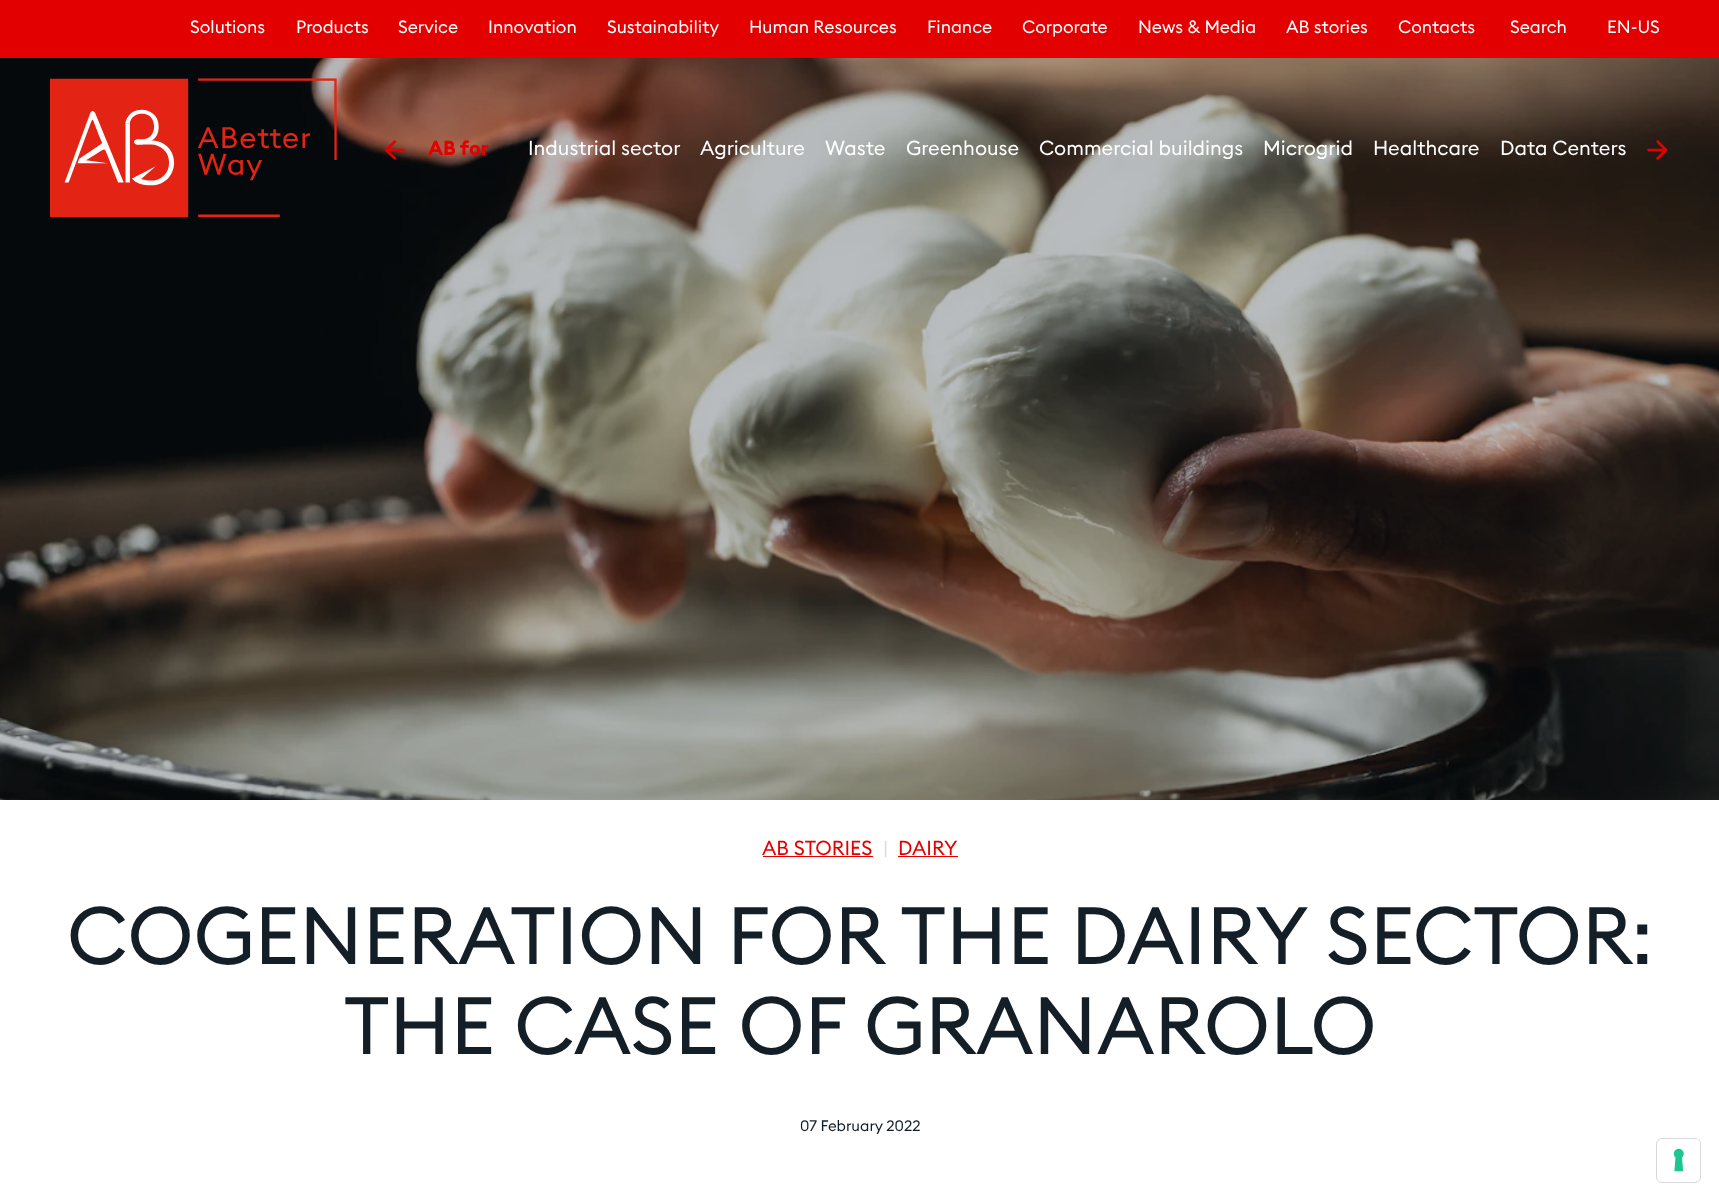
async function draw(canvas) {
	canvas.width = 1719;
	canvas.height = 1201;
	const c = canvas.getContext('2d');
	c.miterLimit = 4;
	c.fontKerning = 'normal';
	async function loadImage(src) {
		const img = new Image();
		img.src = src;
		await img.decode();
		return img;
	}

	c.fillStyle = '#fff';
	c.fillRect(0, 0, 1719, 1201);
	c.fillStyle = '#e30000';
	c.fillRect(0, 0, 1719, 58);
	c.font = '17.5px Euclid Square';
	c.fillStyle = '#fff';
	for (const [text, x, y] of [
		['Solutions', 190, 33],
		['Products', 296, 33],
		['Service', 398, 33],
		['Innovation', 488, 33],
		['Sustainability', 607, 33],
		['Human Resources', 749, 33],
		['Finance', 927, 33],
		['Corporate', 1022, 33],
		['News & Media', 1138, 33],
		['AB stories', 1286, 33],
		['Contacts', 1398, 33],
		['Search', 1510, 33],
		['EN-US', 1607, 33],
	]) {
		c.fillText(text, x, y);
	}
	c.drawImage(await loadImage('img2.png'), 0, 58, 1719, 742);
	c.drawImage(await loadImage('img1.png'), 50, 78, 287, 139);
	c.beginPath();
	c.moveTo(403.5, 150);
	c.lineTo(386, 150);
	c.moveTo(395, 158.5);
	c.lineTo(386, 150);
	c.lineTo(395, 141.5);
	c.strokeStyle = '#e30000';
	c.lineWidth = 2.5;
	c.lineCap = 'round';
	c.lineJoin = 'round';
	c.stroke();
	c.font = 'bold 20px Euclid Square';
	c.fillStyle = '#e30000';
	c.fillText('AB for', 428, 155);
	c.font = '20px Euclid Square';
	c.fillStyle = '#fff';
	for (const [text, x, y] of [
		['Industrial sector', 528, 155],
		['Agriculture', 700, 155],
		['Waste', 825, 155],
		['Greenhouse', 906, 155],
		['Commercial buildings', 1039, 155],
		['Microgrid', 1263, 155],
		['Healthcare', 1373, 155],
		['Data Centers', 1500, 155],
	]) {
		c.fillText(text, x, y);
	}
	c.beginPath();
	c.moveTo(1648.5, 150);
	c.lineTo(1666, 150);
	c.moveTo(1657.5, 141.5);
	c.lineTo(1666, 150);
	c.lineTo(1657.5, 158.5);
	c.stroke();
	c.fillStyle = '#e30000';
	c.fillText('AB STORIES', 762, 855);
	c.fillRect(763, 856, 110, 1);
	c.fillStyle = '#dedede';
	c.fillText('|', 883, 855);
	c.fillStyle = '#e30000';
	c.fillText('DAIRY', 898, 855);
	c.fillRect(898, 856, 60, 1);
	c.font = '80px Euclid Square';
	c.fillStyle = '#131e26';
	c.fillText('COGENERATION FOR THE DAIRY SECTOR:', 67, 964);
	c.fillText('THE CASE OF GRANAROLO', 344, 1054);
	c.font = '15px Euclid Square';
	c.fillText('07 February 2022', 800, 1131);
	c.beginPath();
	c.roundRect(1656.5, 1138.5, 44, 44, 5.5);
	c.strokeStyle = '#d9d9d9';
	c.lineWidth = 1;
	c.lineJoin = 'miter';
	c.stroke();
	c.fillStyle = '#fff';
	c.beginPath();
	c.roundRect(1658, 1139, 42, 42, 5);
	c.fill();
	c.drawImage(await loadImage('img3.png'), 1673, 1148, 11, 24);
}

draw(document.querySelector('canvas'));
